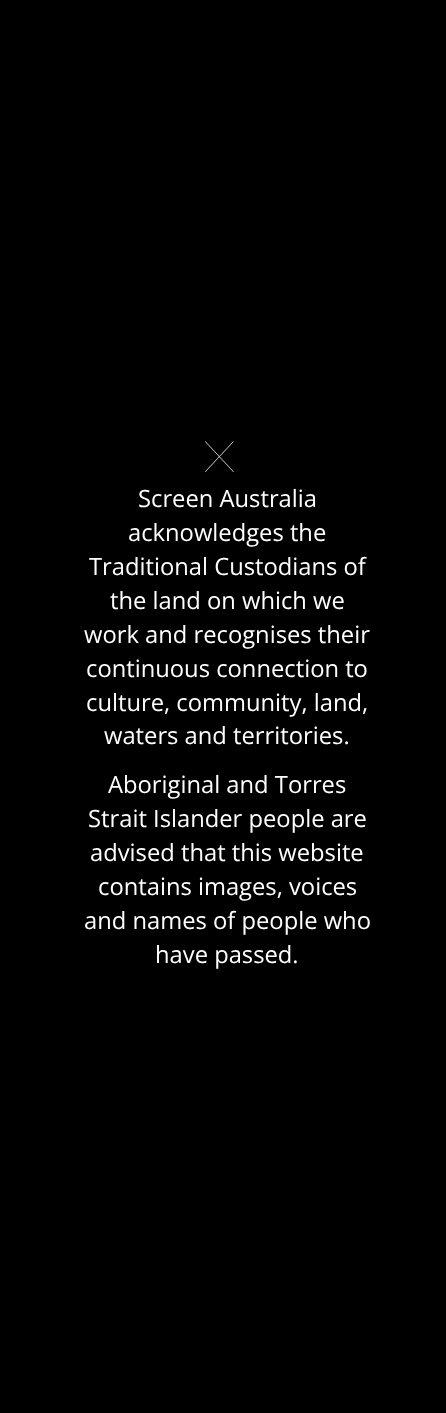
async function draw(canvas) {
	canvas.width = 446;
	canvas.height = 1413;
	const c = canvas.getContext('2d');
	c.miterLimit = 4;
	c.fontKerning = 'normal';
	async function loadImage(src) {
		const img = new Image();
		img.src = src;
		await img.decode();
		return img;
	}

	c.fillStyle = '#000';
	c.fillRect(0, 0, 446, 1413);
	c.drawImage(await loadImage('img1.png'), 205, 441, 29, 32);
	c.font = '23.75px Open Sans';
	c.fillStyle = '#fff';
	for (const [text, x, y] of [
		['Screen Australia', 138, 507],
		['acknowledges the', 128, 541],
		['Traditional Custodians of', 89, 575],
		['the land on which we', 110, 609],
		['work and recognises their', 84, 643],
		['continuous connection to', 86, 677],
		['culture, community, land,', 86, 711],
		['waters and territories.', 104, 744],
		['Aboriginal and Torres', 108, 793],
		['Strait Islander people are', 88, 827],
		['advised that this website', 90, 861],
		['contains images, voices', 98, 895],
		['and names of people who', 84, 929],
		['have passed.', 155, 963],
	]) {
		c.fillText(text, x, y);
	}
}

draw(document.querySelector('canvas'));
